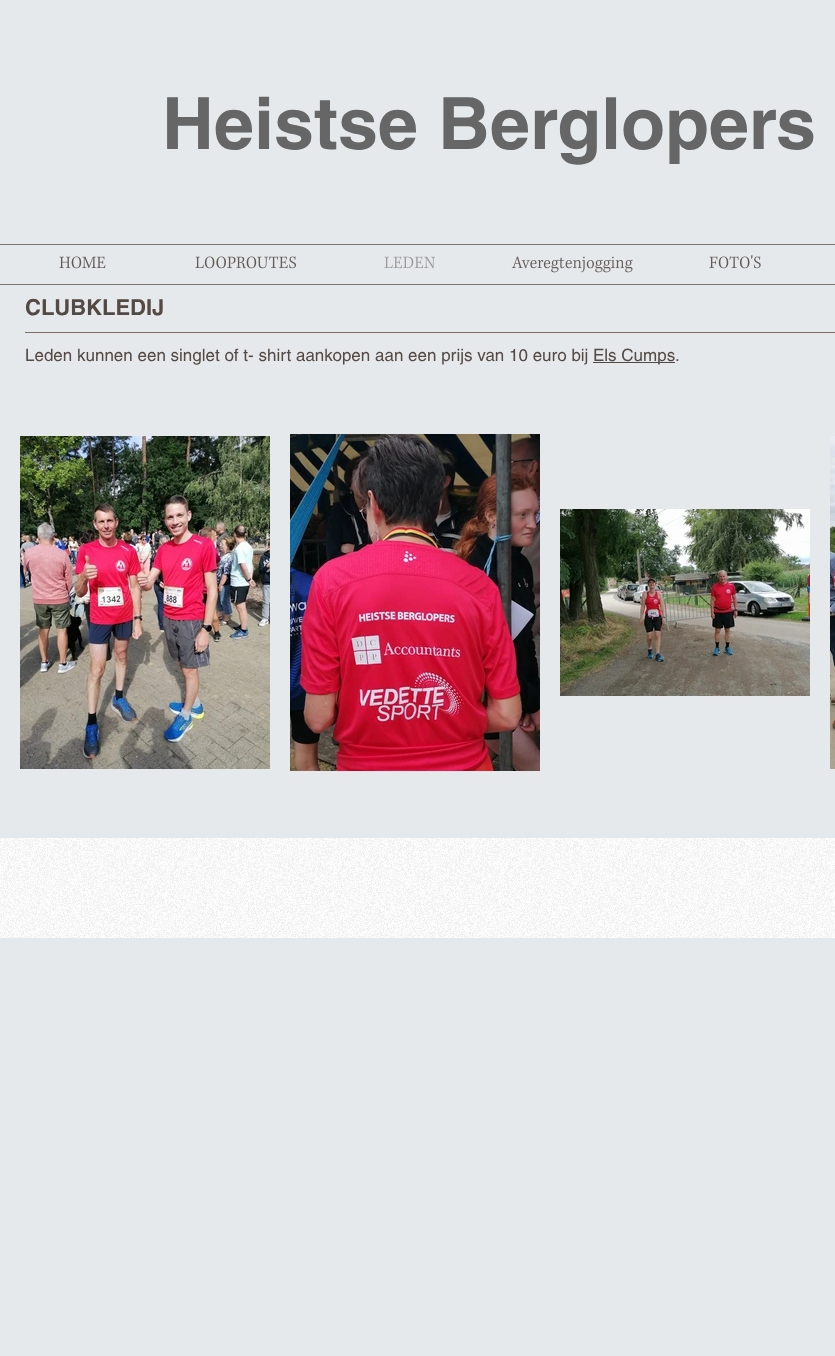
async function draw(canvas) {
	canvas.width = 835;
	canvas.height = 1356;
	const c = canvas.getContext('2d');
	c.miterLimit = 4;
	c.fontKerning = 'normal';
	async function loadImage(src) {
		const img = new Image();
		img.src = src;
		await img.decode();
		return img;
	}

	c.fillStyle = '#e6e9eb';
	c.fillRect(0, 0, 835, 1356);
	c.font = 'bold 72px helvetica';
	c.fillStyle = '#666';
	c.fillText('Heistse Berglopers', 162, 149);
	c.fillStyle = '#7b736f';
	c.fillRect(0, 244, 835, 1);
	c.fillRect(0, 284, 835, 1);
	c.drawImage(await loadImage('img1.png'), 59, 256, 47, 13);
	c.drawImage(await loadImage('img2.png'), 195, 256, 101, 13);
	c.drawImage(await loadImage('img3.png'), 384, 256, 51, 13);
	c.drawImage(await loadImage('img4.png'), 511, 256, 122, 17);
	c.drawImage(await loadImage('img5.png'), 709, 255, 52, 14);
	c.font = 'bold 22px helvetica';
	c.fillStyle = '#544943';
	c.fillText('CLUBKLEDIJ', 25, 315);
	c.fillStyle = '#7f6e64';
	c.fillRect(25, 332, 810, 1);
	c.font = '17px helvetica';
	c.fillStyle = '#544943';
	c.fillText('Leden kunnen een singlet of t- shirt aankopen aan een prijs van 10 euro bij', 25, 361);
	c.fillRect(593, 362, 82, 1);
	c.fillText('Els Cumps.', 593, 361);
	c.drawImage(await loadImage('img6.png'), 20, 436, 250, 333);
	c.drawImage(await loadImage('img7.png'), 290, 434, 250, 337);
	c.drawImage(await loadImage('img8.png'), 560, 509, 250, 187);
	c.drawImage(await loadImage('img9.png'), 830, 436, 5, 333);
	c.fillStyle = '#fff';
	c.fillRect(0, 838, 835, 100);
	c.drawImage(await loadImage('img10.png'), 0, 838, 835, 100);
}

draw(document.querySelector('canvas'));
